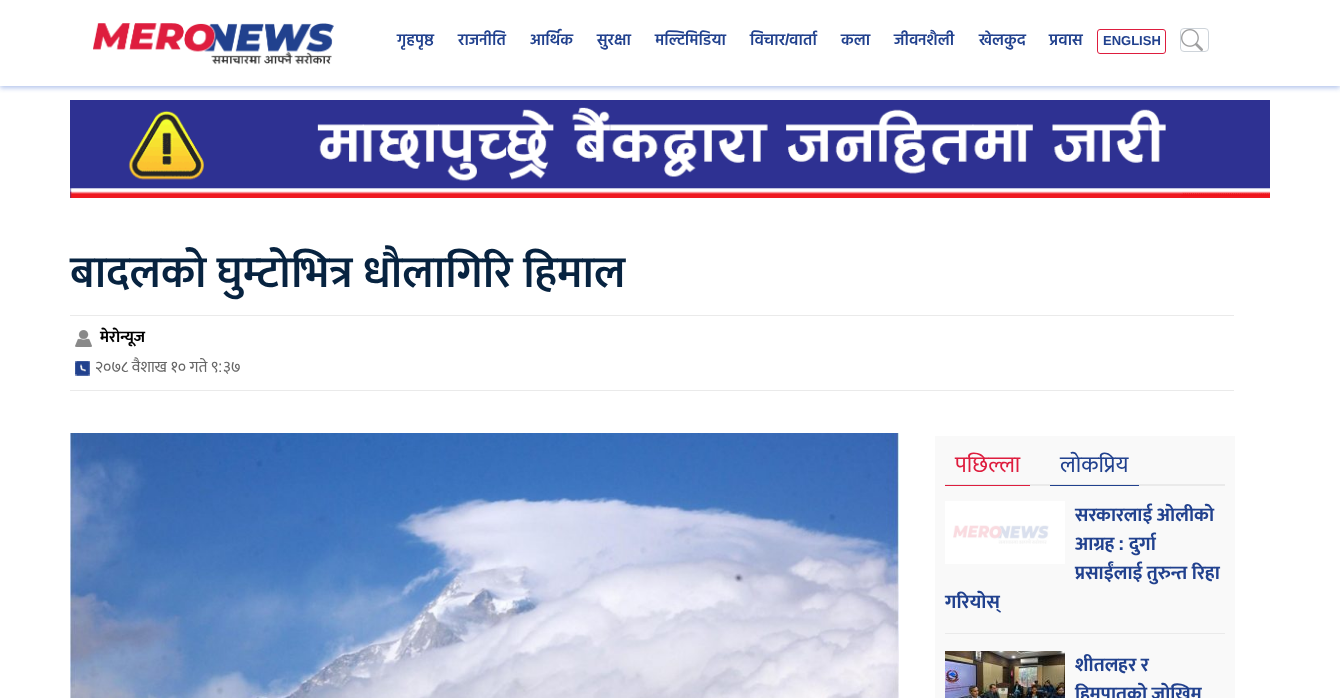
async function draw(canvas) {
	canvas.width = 1340;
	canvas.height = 698;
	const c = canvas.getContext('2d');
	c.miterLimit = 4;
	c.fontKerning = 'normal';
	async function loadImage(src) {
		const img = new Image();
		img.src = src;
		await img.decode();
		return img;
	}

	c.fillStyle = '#fff';
	c.fillRect(0, 0, 1340, 698);
	c.save();
	c.beginPath();
	c.rect(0, 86, 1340, 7);
	c.clip();
	c.fillStyle = '#b3c4ec';
	c.filter = 'blur(2.5px)';
	c.beginPath();
	c.rect(0, 2, 1340, 86);
	c.fill();
	c.filter = 'none';
	c.restore();
	c.drawImage(await loadImage('img1.png'), 93, 23, 241, 42);
	c.font = '600 16px Hind';
	c.fillStyle = '#21418e';
	for (const [text, x, y] of [
		['गृहपृष्ठ', 397, 45],
		['राजनीति', 458, 45],
		['आर्थिक', 530, 45],
		['सुरक्षा', 597, 45],
		['मल्टिमिडिया', 655, 45],
		['विचार', 750, 45],
	]) {
		c.fillText(text, x, y);
	}
	c.font = 'bold 16px Liberation Sans';
	c.fillText('/', 785, 45);
	c.font = '600 16px Hind';
	for (const [text, x, y] of [
		['वार्ता', 789, 45],
		['कला', 841, 45],
		['जीवनशैली', 894, 45],
		['खेलकुद', 979, 45],
		['प्रवास', 1049, 45],
	]) {
		c.fillText(text, x, y);
	}
	c.beginPath();
	c.roundRect(1097.5, 29.5, 68, 24, 2.5);
	c.strokeStyle = '#de1d3e';
	c.stroke();
	c.font = 'bold 13px Liberation Sans';
	c.fillText('ENGLISH', 1103, 45);
	c.drawImage(await loadImage('img2.png'), 1181, 29, 22, 22);
	c.beginPath();
	c.roundRect(1180.5, 28.5, 28, 23, 3.5);
	c.strokeStyle = '#ced4da';
	c.stroke();
	c.drawImage(await loadImage('img3.png'), 70, 100, 1200, 98);
	c.fillStyle = '#eaeaea';
	c.fillRect(70, 390, 1164, 1);
	c.font = '600 44.75px Mukta';
	c.fillStyle = '#072340';
	c.fillText('बादलको घुम्टोभित्र धौलागिरि हिमाल', 70, 287);
	c.fillStyle = '#eaeaea';
	c.fillRect(70, 315, 1164, 1);
	c.drawImage(await loadImage('img4.png'), 75, 330, 17, 17);
	c.font = 'bold 16px Mukta';
	c.fillStyle = '#000';
	c.fillText('मेरोन्यूज', 100, 342);
	c.drawImage(await loadImage('img5.png'), 75, 361, 15, 15);
	c.font = '16px Mukta';
	c.fillStyle = '#666';
	c.fillText('२०७८ वैशाख १० गते ९', 95, 372);
	c.font = '16px Liberation Sans';
	c.fillText(':', 218, 372);
	c.font = '16px Mukta';
	c.fillText('३७', 223, 372);
	c.drawImage(await loadImage('img6.png'), 70, 433, 829, 265);
	for (const [x, y, w, h, color] of [
		[935, 436, 300, 262, '#f9f9f9'],
		[945, 484, 280, 2, '#eaeaea'],
		[945, 485, 85, 1, '#de1d3e'],
	]) {
		c.fillStyle = color;
		c.fillRect(x, y, w, h);
	}
	c.font = '23px Mukta';
	c.fillText('पछिल्ला', 955, 472);
	c.fillStyle = '#21418e';
	c.fillRect(1050, 485, 89, 1);
	c.fillText('लोकप्रिय', 1060, 472);
	c.fillStyle = '#eaeaea';
	c.fillRect(945, 633, 280, 1);
	c.drawImage(await loadImage('img7.png'), 945, 501, 120, 63);
	c.font = 'bold 19.25px Mukta';
	c.fillStyle = '#21418e';
	c.fillText('सरकारलाई ओलीकाे', 1075, 521);
	c.fillText('आग्रह', 1075, 550);
	c.font = 'bold 19.25px Liberation Sans';
	c.fillText(':', 1118, 550);
	c.font = 'bold 19.25px Mukta';
	for (const [text, x, y] of [
		['दुर्गा', 1129, 550],
		['प्रसाईंलाई तुरुन्त रिहा', 1075, 579],
		['गरियाेस्', 945, 608],
	]) {
		c.fillText(text, x, y);
	}
	c.drawImage(await loadImage('img8.png'), 945, 651, 120, 47);
	c.fillText('शीतलहर र', 1075, 671);
	c.fillText('हिमपातको जोखिम', 1075, 700);
}

draw(document.querySelector('canvas'));
